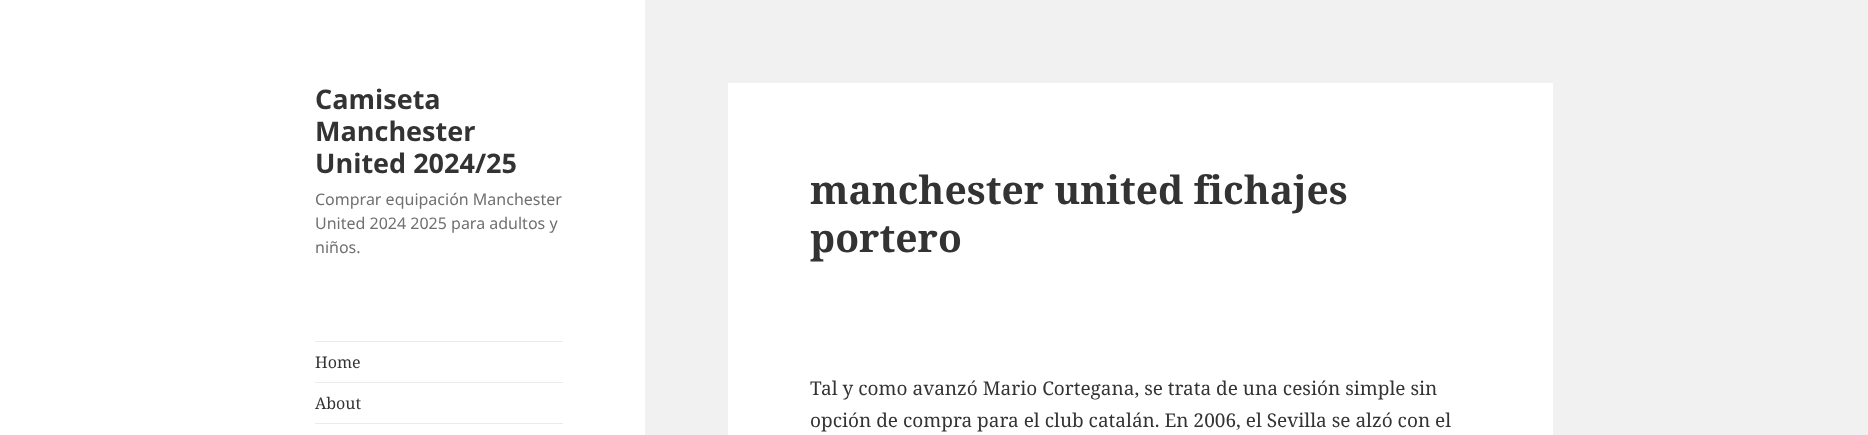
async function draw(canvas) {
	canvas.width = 1868;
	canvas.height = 435;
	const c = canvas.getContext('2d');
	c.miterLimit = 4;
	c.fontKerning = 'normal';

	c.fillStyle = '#f1f1f1';
	c.fillRect(0, 0, 1868, 435);
	c.fillStyle = '#fff';
	c.fillRect(0, 0, 645, 435);
	c.font = 'bold 27px Noto Sans';
	c.fillStyle = '#333';
	for (const [text, x, y] of [
		['Camiseta', 315, 109],
		['Manchester', 315, 141],
		['United 2024/25', 315, 173],
	]) {
		c.fillText(text, x, y);
	}
	c.font = '16px Noto Sans';
	c.fillStyle = '#707070';
	for (const [text, x, y] of [
		['Comprar equipación Manchester', 315, 205],
		['United 2024 2025 para adultos y', 315, 229],
		['niños.', 315, 253],
	]) {
		c.fillText(text, x, y);
	}
	c.fillStyle = '#ebebeb';
	c.fillRect(315, 341, 248, 1);
	c.font = '16px Noto Serif';
	c.fillStyle = '#333';
	c.fillText('Home', 315, 368);
	c.fillStyle = '#ebebeb';
	c.fillRect(315, 382, 248, 1);
	c.fillStyle = '#333';
	c.fillText('About', 315, 409);
	c.fillStyle = '#ebebeb';
	c.fillRect(315, 423, 248, 1);
	c.fillStyle = '#fff';
	c.fillRect(728, 83, 825, 352);
	c.font = 'bold 39px Noto Serif';
	c.fillStyle = '#333';
	c.fillText('manchester united fichajes', 810, 204);
	c.fillText('portero', 810, 252);
	c.font = '19px Noto Serif';
	c.fillText('Tal y como avanzó Mario Cortegana, se trata de una cesión simple sin', 810, 395);
	c.fillText('opción de compra para el club catalán. En 2006, el Sevilla se alzó con el', 810, 427);
}

draw(document.querySelector('canvas'));
